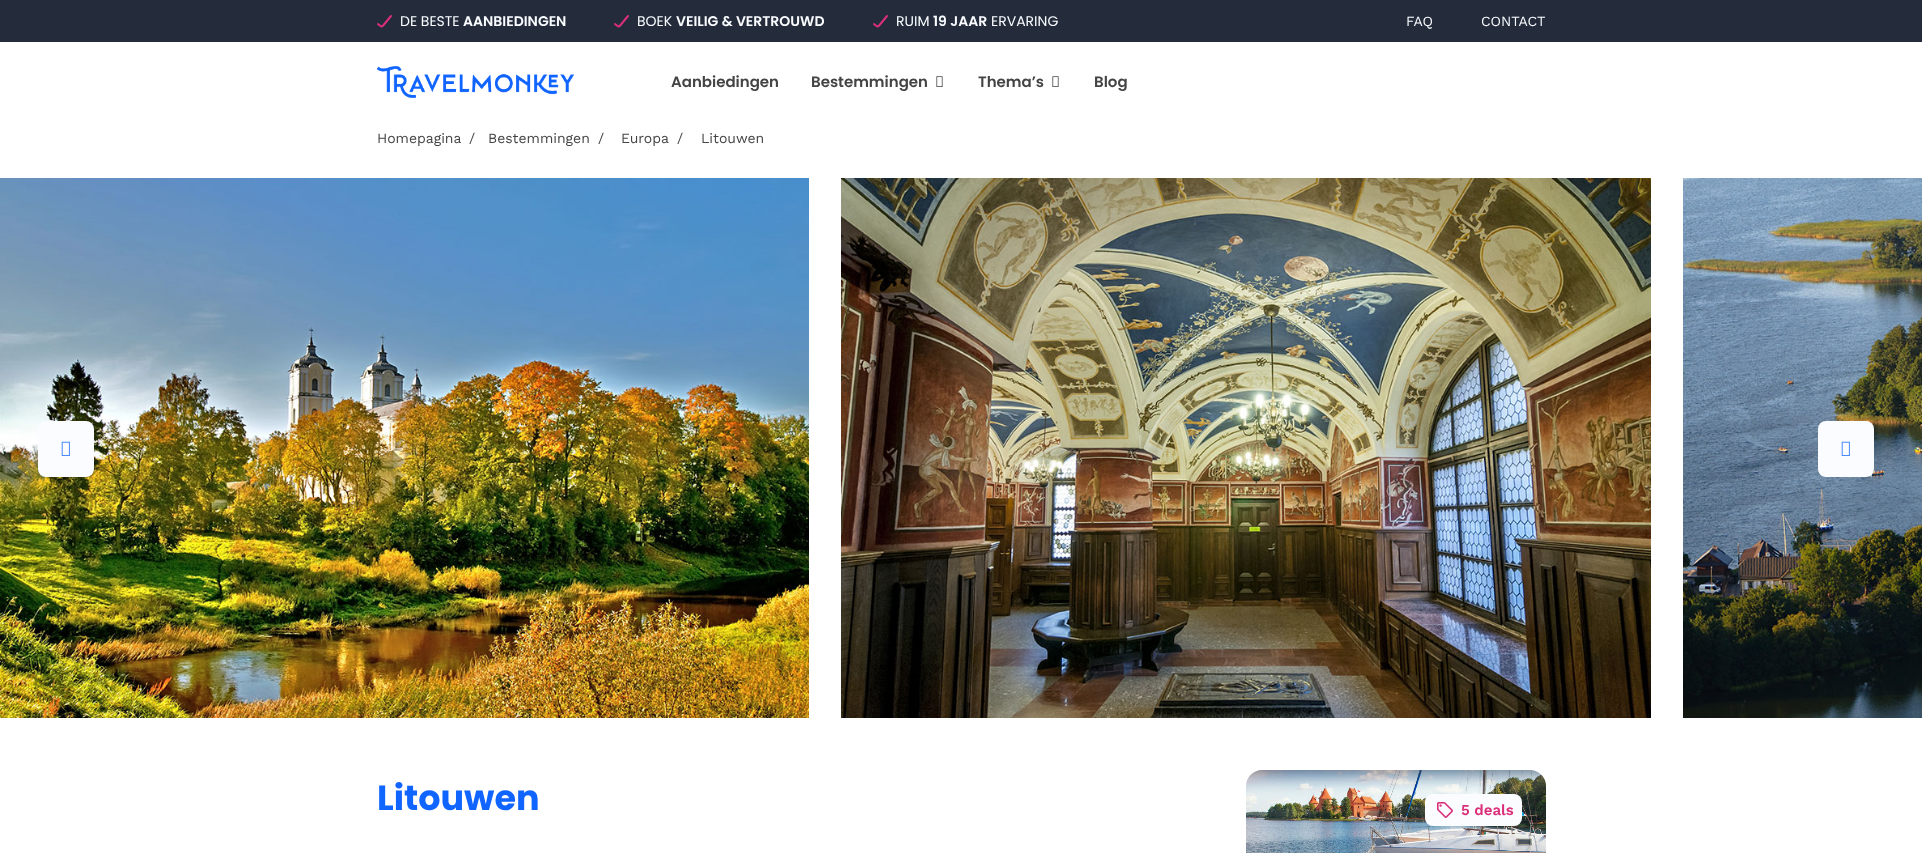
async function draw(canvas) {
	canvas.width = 1922;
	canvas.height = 853;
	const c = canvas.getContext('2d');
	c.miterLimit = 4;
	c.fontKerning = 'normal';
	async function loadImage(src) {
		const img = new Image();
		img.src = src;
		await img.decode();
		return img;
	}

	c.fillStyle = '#fff';
	c.fillRect(0, 0, 1922, 853);
	c.fillStyle = '#242c3c';
	c.fillRect(0, 0, 1922, 42);
	c.beginPath();
	c.moveTo(378, 24);
	c.bezierCurveTo(381.5, 26.5, 381, 28, 384, 24.5);
	c.lineTo(391, 16);
	c.strokeStyle = '#db2f7a';
	c.lineWidth = 2;
	c.lineCap = 'round';
	c.stroke();
	c.font = '14px Poppins';
	c.fillStyle = '#fafcff';
	c.fillText('DE BESTE', 400, 26);
	c.font = '600 14px Poppins';
	c.fillText('AANBIEDINGEN', 463, 26);
	c.beginPath();
	c.moveTo(615, 24);
	c.bezierCurveTo(618.5, 26.5, 618, 28, 621, 24.5);
	c.lineTo(628, 16);
	c.stroke();
	c.font = '14px Poppins';
	c.fillText('BOEK', 637, 26);
	c.font = '600 14px Poppins';
	c.fillText('VEILIG & VERTROUWD', 676, 26);
	c.beginPath();
	c.moveTo(874, 24);
	c.bezierCurveTo(877.5, 26.5, 877, 28, 880, 24.5);
	c.lineTo(887, 16);
	c.stroke();
	c.font = '14px Poppins';
	c.fillText('RUIM', 896, 26);
	c.font = '600 14px Poppins';
	c.fillText('19 JAAR', 933, 26);
	c.font = '14px Poppins';
	c.fillText('ERVARING', 991, 26);
	c.font = '14px Work Sans';
	c.fillText('FAQ', 1406, 26);
	c.fillText('CONTACT', 1481, 26);
	c.drawImage(await loadImage('img1.png'), 377, 66, 197, 32);
	c.font = '600 15px Poppins';
	c.fillStyle = '#444';
	c.fillText('Aanbiedingen', 671, 87);
	c.fillText('Bestemmingen', 811, 87);
	c.drawImage(await loadImage('img2.png'), 936, 76, 7, 11);
	c.fillText('Thema’s', 978, 87);
	c.drawImage(await loadImage('img2.png'), 1052, 76, 7, 11);
	c.fillText('Blog', 1094, 87);
	c.font = '14px Work Sans';
	for (const [text, x, y] of [
		['Homepagina', 377, 143],
		['/', 469, 143],
		['Bestemmingen', 488, 143],
		['/', 598, 143],
		['Europa', 621, 143],
		['/', 677, 143],
		['Litouwen', 701, 143],
	]) {
		c.fillText(text, x, y);
	}
	c.drawImage(await loadImage('img3.png'), 0, 178, 809, 540);
	c.drawImage(await loadImage('img4.png'), 841, 178, 810, 540);
	c.drawImage(await loadImage('img5.png'), 1683, 178, 239, 540);
	c.fillStyle = '#fafcff';
	c.beginPath();
	c.roundRect(38, 421, 56, 56, 8);
	c.fill();
	c.drawImage(await loadImage('img6.png'), 61, 441, 9, 15);
	c.beginPath();
	c.roundRect(1818, 421, 56, 56, 8);
	c.fill();
	c.drawImage(await loadImage('img6.png'), 1841, 441, 9, 15);
	c.font = 'bold 35px Poppins';
	c.fillStyle = '#1064ff';
	c.fillText('Litouwen', 377, 810);
	c.drawImage(await loadImage('img7.png'), 1246, 770, 300, 83);
	c.fillStyle = '#fafcff';
	c.beginPath();
	c.roundRect(1425, 794, 97, 32, 8);
	c.fill();
	c.drawImage(await loadImage('img8.png'), 1437, 802, 16, 16);
	c.font = '600 15px Work Sans';
	c.fillStyle = '#db2f7a';
	c.fillText('5 deals', 1461, 815);
}

draw(document.querySelector('canvas'));
